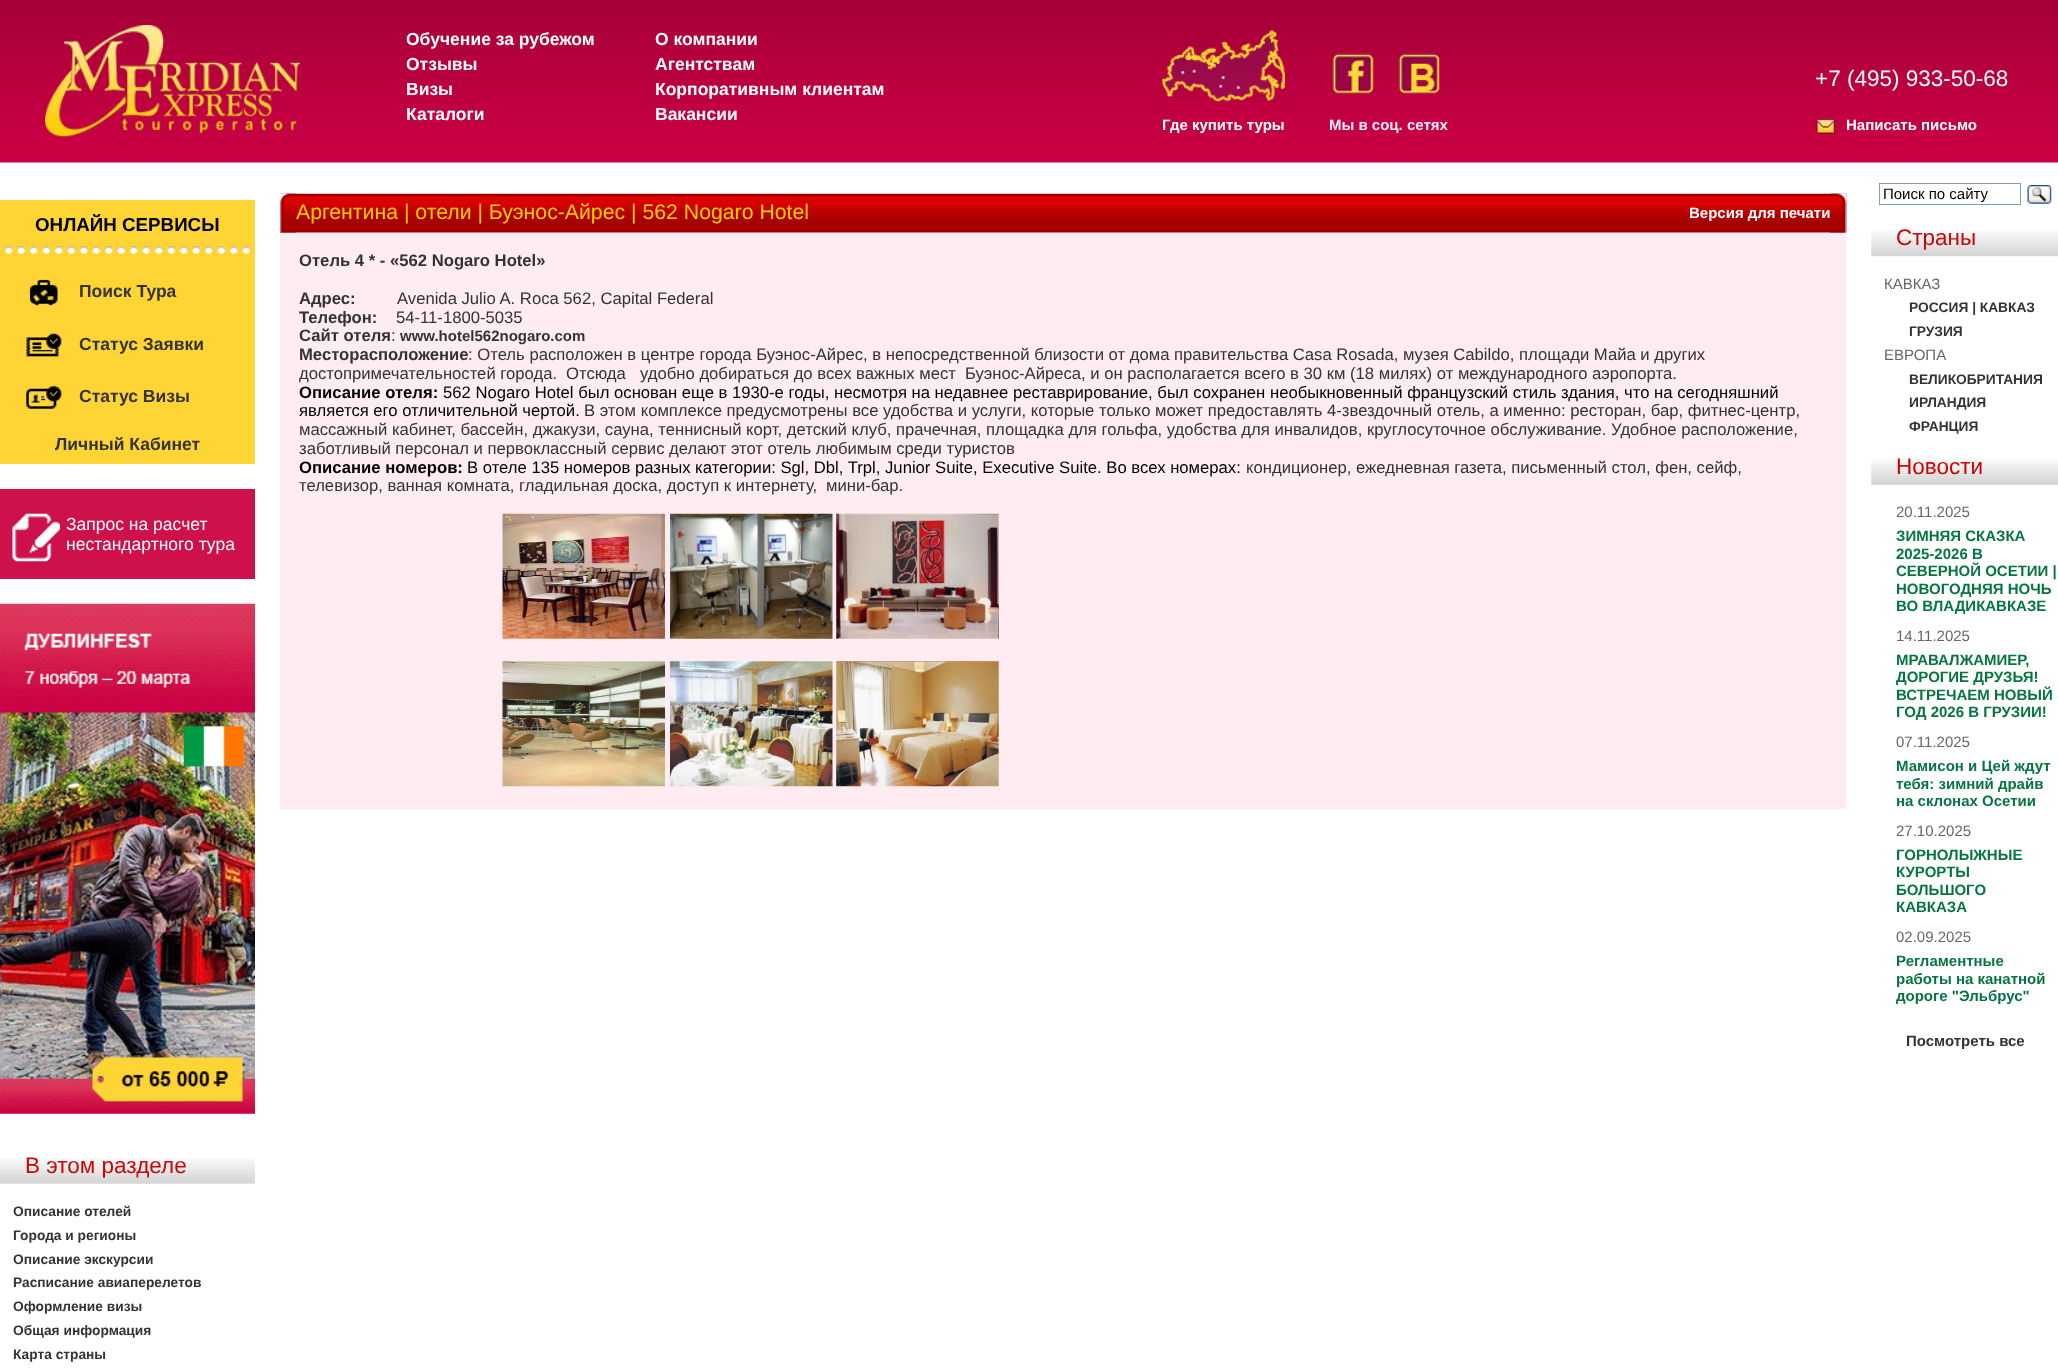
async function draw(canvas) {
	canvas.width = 2058;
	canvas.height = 1372;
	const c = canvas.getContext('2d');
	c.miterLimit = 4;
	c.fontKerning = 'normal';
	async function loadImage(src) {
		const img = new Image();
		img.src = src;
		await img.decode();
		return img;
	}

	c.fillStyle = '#fff';
	c.fillRect(0, 0, 2058, 1372);
	c.drawImage(await loadImage('img1.png'), 0, 0, 2058, 163);
	c.drawImage(await loadImage('img2.png'), 45, 25, 255, 112);
	c.font = 'bold 17.5px Liberation Sans';
	for (const [text, x, y] of [
		['Обучение за рубежом', 406, 45],
		['Отзывы', 406, 70],
		['Визы', 406, 95],
		['Каталоги', 406, 120],
		['О компании', 655, 45],
		['Агентствам', 655, 70],
		['Корпоративным клиентам', 655, 95],
		['Вакансии', 655, 120],
	]) {
		c.fillText(text, x, y);
	}
	c.drawImage(await loadImage('img3.png'), 1161, 29, 124, 74);
	c.font = 'bold 15px Liberation Sans';
	c.fillText('Где купить туры', 1162, 130);
	c.drawImage(await loadImage('img4.png'), 1332, 53, 42, 41);
	c.drawImage(await loadImage('img5.png'), 1398, 53, 42, 41);
	c.fillStyle = '#ffecfe';
	c.fillText('Мы в соц. сетях', 1329, 130);
	c.font = '22.5px Liberation Sans';
	c.fillStyle = '#fff';
	c.fillText('+7 (495) 933-50-68', 1815, 86);
	c.drawImage(await loadImage('img6.png'), 1815, 118, 22, 16);
	c.font = 'bold 15px Liberation Sans';
	c.fillText('Написать письмо', 1846, 130);
	c.fillStyle = '#ffd535';
	c.fillRect(0, 200, 255, 264);
	c.drawImage(await loadImage('img7.png'), 5, 246, 245, 8);
	c.font = 'bold 18.75px Liberation Sans';
	c.fillStyle = '#000';
	c.fillText('ОНЛАЙН СЕРВИСЫ', 35, 231);
	c.drawImage(await loadImage('img8.png'), 29, 279, 29, 27);
	c.font = 'bold 17.5px Liberation Sans';
	c.fillStyle = '#333';
	c.fillText('Поиск Тура', 79, 297);
	c.drawImage(await loadImage('img9.png'), 26, 333, 36, 24);
	c.fillText('Статус Заявки', 79, 350);
	c.drawImage(await loadImage('img10.png'), 26, 386, 36, 23);
	c.fillText('Статус Визы', 79, 402);
	c.fillText('Личный Кабинет', 55, 450);
	c.fillStyle = '#ce114b';
	c.fillRect(0, 489, 255, 90);
	c.drawImage(await loadImage('img11.png'), 12, 513, 48, 49);
	c.font = '17.5px Liberation Sans';
	c.fillStyle = '#fff';
	c.fillText('Запрос на расчет', 66, 530);
	c.fillText('нестандартного тура', 66, 550);
	c.drawImage(await loadImage('img12.png'), 0, 603, 255, 511);
	c.drawImage(await loadImage('img13.png'), 0, 1158, 255, 26);
	c.font = '22.5px Liberation Sans';
	c.fillStyle = '#ca0505';
	c.fillText('В этом разделе', 25, 1173);
	c.font = 'bold 13.75px Liberation Sans';
	c.fillStyle = '#333';
	for (const [text, x, y] of [
		['Описание отелей', 13, 1216],
		['Города и регионы', 13, 1240],
		['Описание экскурсии', 13, 1264],
		['Расписание авиаперелетов', 13, 1287],
		['Оформление визы', 13, 1311],
		['Общая информация', 13, 1335],
		['Карта страны', 13, 1359],
	]) {
		c.fillText(text, x, y);
	}
	c.drawImage(await loadImage('img14.png'), 280, 193, 1567, 40);
	c.drawImage(await loadImage('img15.png'), 280, 193, 17, 40);
	c.font = '21.25px Liberation Sans';
	c.fillStyle = '#ffce00';
	c.fillText('Аргентина | отели | Буэнос-Айрес | 562 Nogaro Hotel', 296, 219);
	c.font = 'bold 15px Liberation Sans';
	c.fillStyle = '#fff';
	c.fillText('Версия для печати', 1689, 218);
	c.drawImage(await loadImage('img16.png'), 1830, 193, 17, 40);
	c.fillStyle = '#ffecf2';
	c.fillRect(280, 233, 1566, 576);
	c.font = 'bold 16.67px Liberation Sans';
	c.fillStyle = '#333';
	c.fillText('Отель 4 * - «562 Nogaro Hotel»', 299, 266);
	c.fillText('Адрес:', 299, 304);
	c.font = '16.67px Liberation Sans';
	c.fillText('Avenida Julio A. Roca 562, Capital Federal', 397, 304);
	c.font = 'bold 16.67px Liberation Sans';
	c.fillText('Телефон:', 299, 323);
	c.font = '16.67px Liberation Sans';
	c.fillText('54-11-1800-5035', 396, 323);
	c.font = 'bold 16.67px Liberation Sans';
	c.fillText('Сайт отеля', 299, 341);
	c.font = '16.67px Liberation Sans';
	c.fillText(':', 391, 341);
	c.font = 'bold 15px Liberation Sans';
	c.fillText('www.hotel562nogaro.com', 400, 341);
	c.font = 'bold 16.67px Liberation Sans';
	c.fillText('Месторасположение', 299, 360);
	c.font = '16.67px Liberation Sans';
	for (const [text, x, y] of [
		[': Отель расположен в центре города Буэнос-Айрес, в непосредственной близости от дома правительства Casa Rosada, музея Cabildo, площади Майа и других', 468, 360],
		['достопримечательностей города.', 299, 379],
		['Отсюда', 566, 379],
		['удобно добираться до всех важных мест', 640, 379],
		['Буэнос-Айреса, и он располагается всего в 30 км (18 милях) от международного аэропорта.', 965, 379],
	]) {
		c.fillText(text, x, y);
	}
	c.font = 'bold 16.67px Liberation Sans';
	c.fillStyle = '#000';
	c.fillText('Описание отеля:', 299, 398);
	c.font = '16.67px Liberation Sans';
	c.fillText('562 Nogaro Hotel был основан еще в 1930-е годы, несмотря на недавнее реставрирование, был сохранен необыкновенный французский стиль здания, что на сегодняшний', 443, 398);
	c.fillText('является его отличительной чертой.', 299, 416);
	c.fillStyle = '#333';
	for (const [text, x, y] of [
		['В этом комплексе предусмотрены все удобства и услуги, которые только может предоставлять 4-звездочный отель, а именно: ресторан, бар, фитнес-центр,', 584, 416],
		['массажный кабинет, бассейн, джакузи, сауна, теннисный корт, детский клуб, прачечная, площадка для гольфа, удобства для инвалидов, круглосуточное обслуживание. Удобное расположение,', 299, 435],
		['заботливый персонал и первоклассный сервис делают этот отель любимым среди туристов', 299, 454],
	]) {
		c.fillText(text, x, y);
	}
	c.font = 'bold 16.67px Liberation Sans';
	c.fillStyle = '#000';
	c.fillText('Описание номеров:', 299, 473);
	c.font = '16.67px Liberation Sans';
	c.fillText('В отеле 135 номеров разных категории: Sgl, Dbl, Trpl, Junior Suite, Executive Suite. Во всех номерах:', 467, 473);
	c.fillStyle = '#333';
	for (const [text, x, y] of [
		['кондиционер, ежедневная газета, письменный стол, фен, сейф,', 1246, 473],
		['телевизор, ванная комната, гладильная доска, доступ к интернету,', 299, 491],
		['мини-бар.', 826, 491],
	]) {
		c.fillText(text, x, y);
	}
	c.drawImage(await loadImage('img17.png'), 502, 513, 163, 126);
	c.drawImage(await loadImage('img18.png'), 670, 513, 163, 126);
	c.drawImage(await loadImage('img19.png'), 836, 513, 163, 126);
	c.drawImage(await loadImage('img20.png'), 502, 661, 163, 126);
	c.drawImage(await loadImage('img21.png'), 670, 661, 163, 126);
	c.drawImage(await loadImage('img22.png'), 836, 661, 163, 126);
	c.strokeStyle = '#7f9db9';
	c.strokeRect(1879.5, 183.5, 141, 21);
	c.font = '15px Liberation Sans';
	c.fillStyle = '#000';
	c.fillText('Поиск по сайту', 1883, 199);
	c.drawImage(await loadImage('img23.png'), 2027, 185, 25, 19);
	c.drawImage(await loadImage('img24.png'), 1871, 230, 187, 27);
	c.font = '22.5px Liberation Sans';
	c.fillStyle = '#ca0505';
	c.fillText('Страны', 1896, 245);
	c.font = '15px Liberation Sans';
	c.fillStyle = '#666';
	c.fillText('КАВКАЗ', 1884, 289);
	c.font = 'bold 13.75px Liberation Sans';
	c.fillStyle = '#333';
	c.fillText('РОССИЯ | КАВКАЗ', 1909, 312);
	c.fillText('ГРУЗИЯ', 1909, 336);
	c.font = '15px Liberation Sans';
	c.fillStyle = '#666';
	c.fillText('ЕВРОПА', 1884, 360);
	c.font = 'bold 13.75px Liberation Sans';
	c.fillStyle = '#333';
	for (const [text, x, y] of [
		['ВЕЛИКОБРИТАНИЯ', 1909, 384],
		['ИРЛАНДИЯ', 1909, 407],
		['ФРАНЦИЯ', 1909, 431],
	]) {
		c.fillText(text, x, y);
	}
	c.drawImage(await loadImage('img25.png'), 1871, 459, 187, 26);
	c.font = '22.5px Liberation Sans';
	c.fillStyle = '#ca0505';
	c.fillText('Новости', 1896, 474);
	c.font = '15px Liberation Sans';
	c.fillStyle = '#666';
	c.fillText('20.11.2025', 1896, 517);
	c.font = 'bold 15px Liberation Sans';
	c.fillStyle = '#067541';
	for (const [text, x, y] of [
		['ЗИМНЯЯ СКАЗКА', 1896, 541],
		['2025-2026 В', 1896, 559],
		['СЕВЕРНОЙ ОСЕТИИ |', 1896, 576],
		['НОВОГОДНЯЯ НОЧЬ', 1896, 594],
		['ВО ВЛАДИКАВКАЗЕ', 1896, 611],
	]) {
		c.fillText(text, x, y);
	}
	c.font = '15px Liberation Sans';
	c.fillStyle = '#666';
	c.fillText('14.11.2025', 1896, 641);
	c.font = 'bold 15px Liberation Sans';
	c.fillStyle = '#067541';
	for (const [text, x, y] of [
		['МРАВАЛЖАМИЕР,', 1896, 665],
		['ДОРОГИЕ ДРУЗЬЯ!', 1896, 682],
		['ВСТРЕЧАЕМ НОВЫЙ', 1896, 700],
		['ГОД 2026 В ГРУЗИИ!', 1896, 717],
	]) {
		c.fillText(text, x, y);
	}
	c.font = '15px Liberation Sans';
	c.fillStyle = '#666';
	c.fillText('07.11.2025', 1896, 747);
	c.font = 'bold 15px Liberation Sans';
	c.fillStyle = '#067541';
	for (const [text, x, y] of [
		['Мамисон и Цей ждут', 1896, 771],
		['тебя: зимний драйв', 1896, 789],
		['на склонах Осетии', 1896, 806],
	]) {
		c.fillText(text, x, y);
	}
	c.font = '15px Liberation Sans';
	c.fillStyle = '#666';
	c.fillText('27.10.2025', 1896, 836);
	c.font = 'bold 15px Liberation Sans';
	c.fillStyle = '#067541';
	for (const [text, x, y] of [
		['ГОРНОЛЫЖНЫЕ', 1896, 860],
		['КУРОРТЫ', 1896, 877],
		['БОЛЬШОГО', 1896, 895],
		['КАВКАЗА', 1896, 912],
	]) {
		c.fillText(text, x, y);
	}
	c.font = '15px Liberation Sans';
	c.fillStyle = '#666';
	c.fillText('02.09.2025', 1896, 942);
	c.font = 'bold 15px Liberation Sans';
	c.fillStyle = '#067541';
	for (const [text, x, y] of [
		['Регламентные', 1896, 966],
		['работы на канатной', 1896, 984],
		['дороге "Эльбрус"', 1896, 1001],
	]) {
		c.fillText(text, x, y);
	}
	c.fillStyle = '#333';
	c.fillText('Посмотреть все', 1906, 1046);
}

draw(document.querySelector('canvas'));
